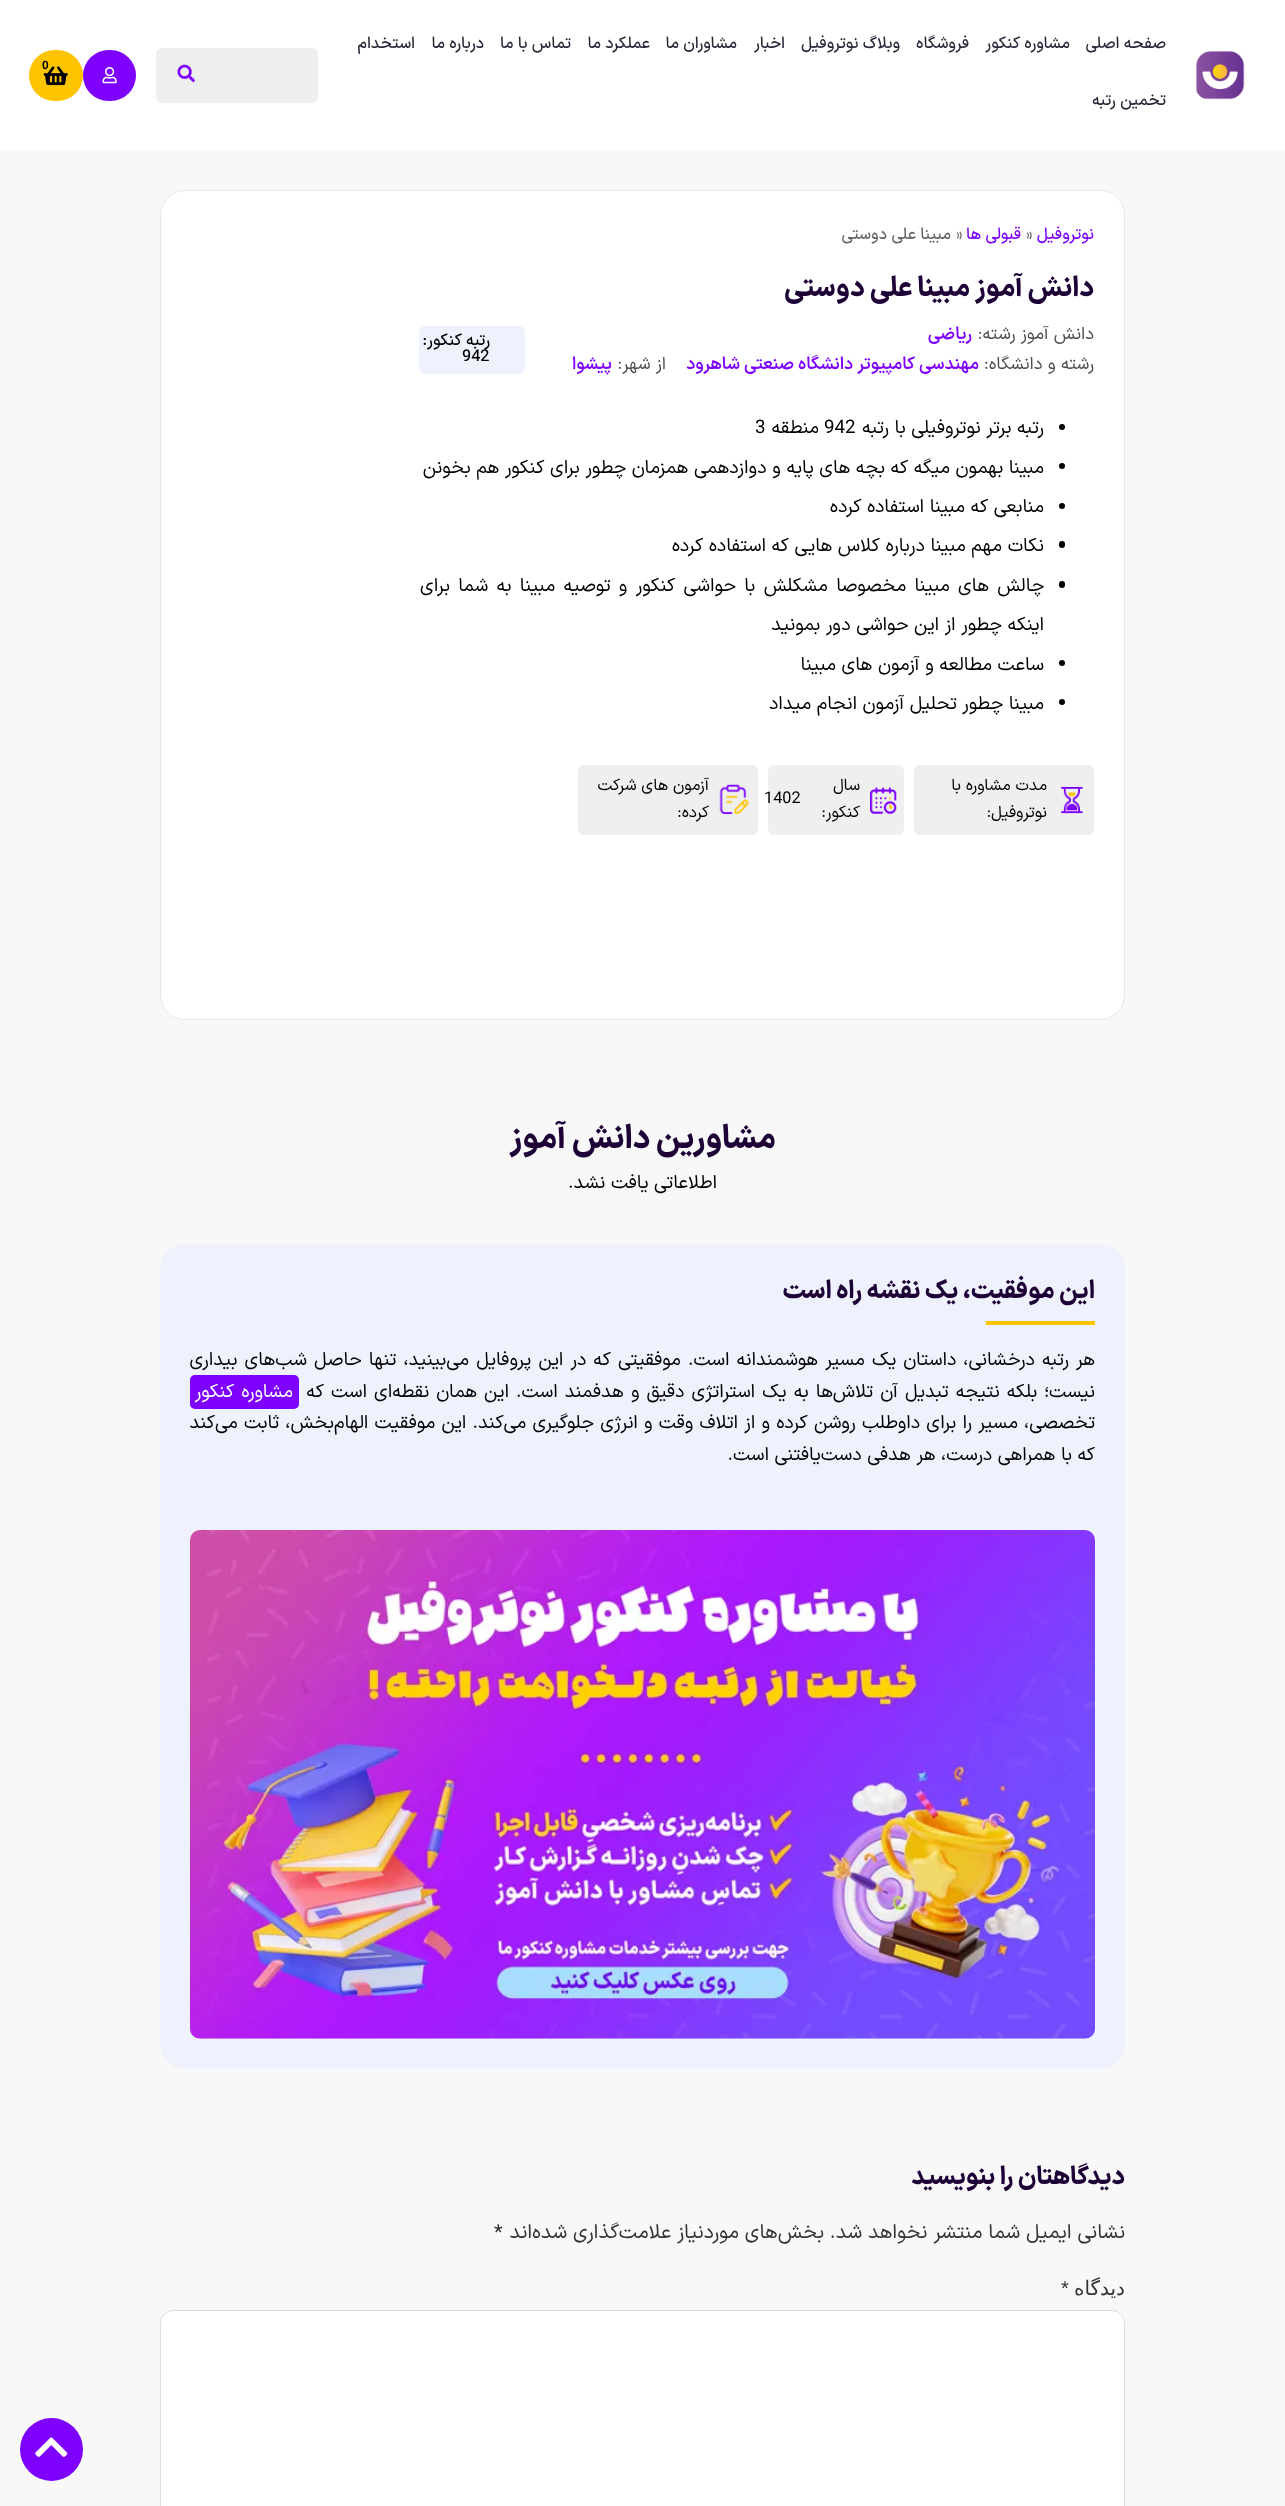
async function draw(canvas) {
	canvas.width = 1285;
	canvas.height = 2506;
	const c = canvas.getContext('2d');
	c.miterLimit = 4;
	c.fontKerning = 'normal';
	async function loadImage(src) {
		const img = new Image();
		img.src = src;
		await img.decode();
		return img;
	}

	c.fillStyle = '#f8f8f8';
	c.fillRect(0, 0, 1285, 2506);
	c.fillStyle = '#fff';
	c.fillRect(0, 0, 1285, 150);
	c.drawImage(await loadImage('img1.png'), 1195, 50, 50, 50);
	c.direction = 'rtl';
	c.font = '500 16.25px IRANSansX';
	c.fillStyle = '#2a273a';
	for (const [text, x, y] of [
		['صفحه اصلی', 1166, 48],
		['مشاوره کنکور', 1070, 48],
		['فروشگاه', 969, 48],
		['وبلاگ نوتروفیل', 900, 48],
		['اخبار', 785, 48],
		['مشاوران ما', 737, 48],
		['عملکرد ما', 650, 48],
		['تماس با ما', 571, 48],
		['درباره ما', 484, 48],
		['استخدام', 415, 48],
		['تخمین رتبه', 1166, 105],
	]) {
		c.fillText(text, x, y);
	}
	c.fillStyle = '#efefef';
	c.beginPath();
	c.roundRect(156, 48, 162, 55, 6);
	c.fill();
	c.drawImage(await loadImage('img2.png'), 177, 64, 18, 19);
	c.fillStyle = '#7e00fd';
	c.beginPath();
	c.roundRect(83, 50, 53, 51, 25.5);
	c.fill();
	c.drawImage(await loadImage('img3.png'), 102, 67, 15, 17);
	c.fillStyle = '#ffc400';
	c.beginPath();
	c.roundRect(29, 50, 54, 51, 25.5);
	c.fill();
	c.drawImage(await loadImage('img4.png'), 43, 66, 25, 20);
	c.direction = 'ltr';
	c.font = 'bold 12px Liberation Sans';
	c.fillStyle = '#000';
	c.fillText('0', 42, 69);
	c.fillStyle = '#fff';
	c.beginPath();
	c.roundRect(160, 190, 965, 830, 25);
	c.fill();
	c.beginPath();
	c.roundRect(160.5, 190.5, 964, 829, 24.5);
	c.strokeStyle = '#cdcdcd78';
	c.stroke();
	c.direction = 'rtl';
	c.font = '500 16.25px IRANSansX';
	c.fillStyle = '#7e00fd';
	c.fillText('نوتروفیل', 1094, 239);
	c.direction = 'ltr';
	c.fillStyle = '#666';
	c.fillText('»', 1026, 239);
	c.direction = 'rtl';
	c.fillStyle = '#7e00fd';
	c.fillText('قبولی ها', 1021, 239);
	c.direction = 'ltr';
	c.fillStyle = '#666';
	c.fillText('»', 956, 239);
	c.direction = 'rtl';
	c.fillText('مبینا علی دوستی', 951, 239);
	c.font = '800 27.5px IRANSansX';
	c.fillStyle = '#1c0036';
	c.fillText('دانش آموز مبینا علی دوستی', 1094, 296);
	c.font = '17.5px IRANSansX';
	c.fillStyle = '#4d4d4d';
	c.fillText('دانش آموز رشته:', 1094, 339);
	c.font = '600 17.5px IRANSansX';
	c.fillStyle = '#7e00fd';
	c.fillText('ریاضی', 972, 339);
	c.font = '17.5px IRANSansX';
	c.fillStyle = '#4d4d4d';
	c.fillText('رشته و دانشگاه:', 1094, 369);
	c.font = '600 17.5px IRANSansX';
	c.fillStyle = '#7e00fd';
	c.fillText('مهندسی کامپیوتر دانشگاه صنعتی شاهرود', 979, 369);
	c.font = '17.5px IRANSansX';
	c.fillStyle = '#4d4d4d';
	c.fillText('از شهر:', 666, 369);
	c.font = '600 17.5px IRANSansX';
	c.fillStyle = '#7e00fd';
	c.fillText('پیشوا', 612, 369);
	c.fillStyle = '#eff1fd';
	c.beginPath();
	c.roundRect(419, 326, 106, 48, 6);
	c.fill();
	c.font = '500 16.25px IRANSansX';
	c.fillStyle = '#000';
	c.fillText('رتبه کنکور:', 490, 345);
	c.direction = 'ltr';
	c.fillText('942', 462, 361);
	c.beginPath();
	c.arc(1062, 427, 3, 0, 2 * Math.PI);
	c.fill();
	c.direction = 'rtl';
	c.font = '18.75px IRANSansX';
	c.fillText('رتبه برتر نوتروفیلی با رتبه', 1044, 433);
	c.direction = 'ltr';
	c.fillText('942', 824, 433);
	c.direction = 'rtl';
	c.fillText('منطقه', 819, 433);
	c.direction = 'ltr';
	c.fillText('3', 755, 433);
	c.beginPath();
	c.arc(1062, 466, 3, 0, 2 * Math.PI);
	c.fill();
	c.direction = 'rtl';
	c.fillText('مبینا بهمون میگه که بچه های پایه و دوازدهمی همزمان چطور برای کنکور هم بخونن', 1044, 473);
	c.beginPath();
	c.arc(1062, 506, 3, 0, 2 * Math.PI);
	c.fill();
	c.fillText('منابعی که مبینا استفاده کرده', 1044, 512);
	c.beginPath();
	c.roundRect(1059, 541, 6, 7, 3);
	c.fill();
	c.fillText('نکات مهم مبینا درباره کلاس هایی که استفاده کرده', 1044, 551);
	c.beginPath();
	c.roundRect(1059, 581, 6, 7, 3);
	c.fill();
	c.wordSpacing = '2.75px';
	c.fillText('چالش های مبینا مخصوصا مشکلش با حواشی کنکور و توصیه مبینا به شما برای', 1044, 591);
	c.wordSpacing = '0px';
	c.fillText('اینکه چطور از این حواشی دور بمونید', 1044, 630);
	c.beginPath();
	c.arc(1062, 663, 3, 0, 2 * Math.PI);
	c.fill();
	c.fillText('ساعت مطالعه و آزمون های مبینا', 1044, 670);
	c.beginPath();
	c.arc(1062, 702, 3, 0, 2 * Math.PI);
	c.fill();
	c.fillText('مبینا چطور تحلیل آزمون انجام میداد', 1044, 709);
	c.fillStyle = '#efefef';
	c.beginPath();
	c.roundRect(914, 765, 180, 70, 6);
	c.fill();
	c.drawImage(await loadImage('img5.png'), 1061, 786, 22, 28);
	c.font = '16.25px IRANSansX';
	c.fillStyle = '#000';
	c.fillText('مدت مشاوره با', 1047, 790);
	c.fillText('نوتروفیل:', 1047, 817);
	c.fillStyle = '#efefef';
	c.beginPath();
	c.roundRect(768, 765, 136, 70, 6);
	c.fill();
	c.drawImage(await loadImage('img6.png'), 870, 787, 27, 27);
	c.fillStyle = '#000';
	c.fillText('سال', 860, 790);
	c.fillText('کنکور:', 860, 817);
	c.direction = 'ltr';
	c.fillText('1402', 764, 803);
	c.fillStyle = '#efefef';
	c.beginPath();
	c.roundRect(578, 765, 180, 70, 6);
	c.fill();
	c.drawImage(await loadImage('img7.png'), 719, 784, 30, 31);
	c.direction = 'rtl';
	c.fillStyle = '#000';
	c.fillText('آزمون های شرکت', 709, 790);
	c.fillText('کرده:', 709, 817);
	c.font = '800 32.5px "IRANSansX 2"';
	c.fillStyle = '#1c0036';
	c.fillText('مشاورین دانش آموز', 776, 1148);
	c.font = '18.75px IRANSansX';
	c.fillStyle = '#000';
	c.fillText('اطلاعاتی یافت نشد.', 717, 1188);
	c.fillStyle = '#eff1fd';
	c.beginPath();
	c.roundRect(160, 1244, 965, 825, 25);
	c.fill();
	c.font = '800 25px "IRANSansX 2"';
	c.fillStyle = '#1c0036';
	c.fillText('این موفقیت، یک نقشه راه است', 1095, 1298);
	c.fillStyle = '#ffc400';
	c.fillRect(986, 1321, 109, 4);
	c.wordSpacing = '1.5px';
	c.font = '18.75px IRANSansX';
	c.fillStyle = '#000';
	c.fillText('هر رتبه درخشانی، داستان یک مسیر هوشمندانه است. موفقیتی که در این پروفایل می‌بینید، تنها حاصل شب‌های بیداری', 1095, 1365);
	c.fillText('نیست؛ بلکه نتیجه تبدیل آن تلاش‌ها به یک استراتژی دقیق و هدفمند است. این همان نقطه‌ای است که', 1095, 1397);
	c.fillStyle = '#7e00fd';
	c.beginPath();
	c.roundRect(190, 1375, 109, 34, 5);
	c.fill();
	c.fillStyle = '#fff';
	c.fillText('مشاوره کنکور', 293, 1397);
	c.wordSpacing = '0.6px';
	c.fillStyle = '#000';
	c.fillText('تخصصی، مسیر را برای داوطلب روشن کرده و از اتلاف وقت و انرژی جلوگیری می‌کند. این موفقیت الهام‌بخش، ثابت می‌کند', 1095, 1428);
	c.wordSpacing = '0px';
	c.fillText('که با همراهی درست، هر هدفی دست‌یافتنی است.', 1095, 1460);
	c.drawImage(await loadImage('img8.png'), 190, 1530, 905, 509);
	c.font = '800 25px "IRANSansX 2"';
	c.fillStyle = '#1c0036';
	c.fillText('دیدگاهتان را بنویسید', 1125, 2184);
	c.font = '20px IRANSansX';
	c.fillStyle = '#333';
	c.fillText('نشانی ایمیل شما منتشر نخواهد شد.', 1125, 2238);
	c.fillText('بخش‌های موردنیاز علامت‌گذاری شده‌اند', 824, 2238);
	c.direction = 'ltr';
	c.fillText('*', 494, 2238);
	c.direction = 'rtl';
	c.font = '20px DejaVu Sans';
	c.fillText('دیدگاه', 1125, 2295);
	c.direction = 'ltr';
	c.font = '20px Liberation Sans';
	c.fillText('*', 1061, 2295);
	c.fillStyle = '#fff';
	c.beginPath();
	c.roundRect(160.5, 2310.5, 964, 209, 12.5);
	c.fill();
	c.strokeStyle = '#ddd';
	c.stroke();
	c.fillStyle = '#7e00fd';
	c.beginPath();
	c.arc(51.5, 2449.5, 31.5, 0, 2 * Math.PI);
	c.fill();
	c.drawImage(await loadImage('img9.png'), 35, 2437, 33, 20);
}

draw(document.querySelector('canvas'));
